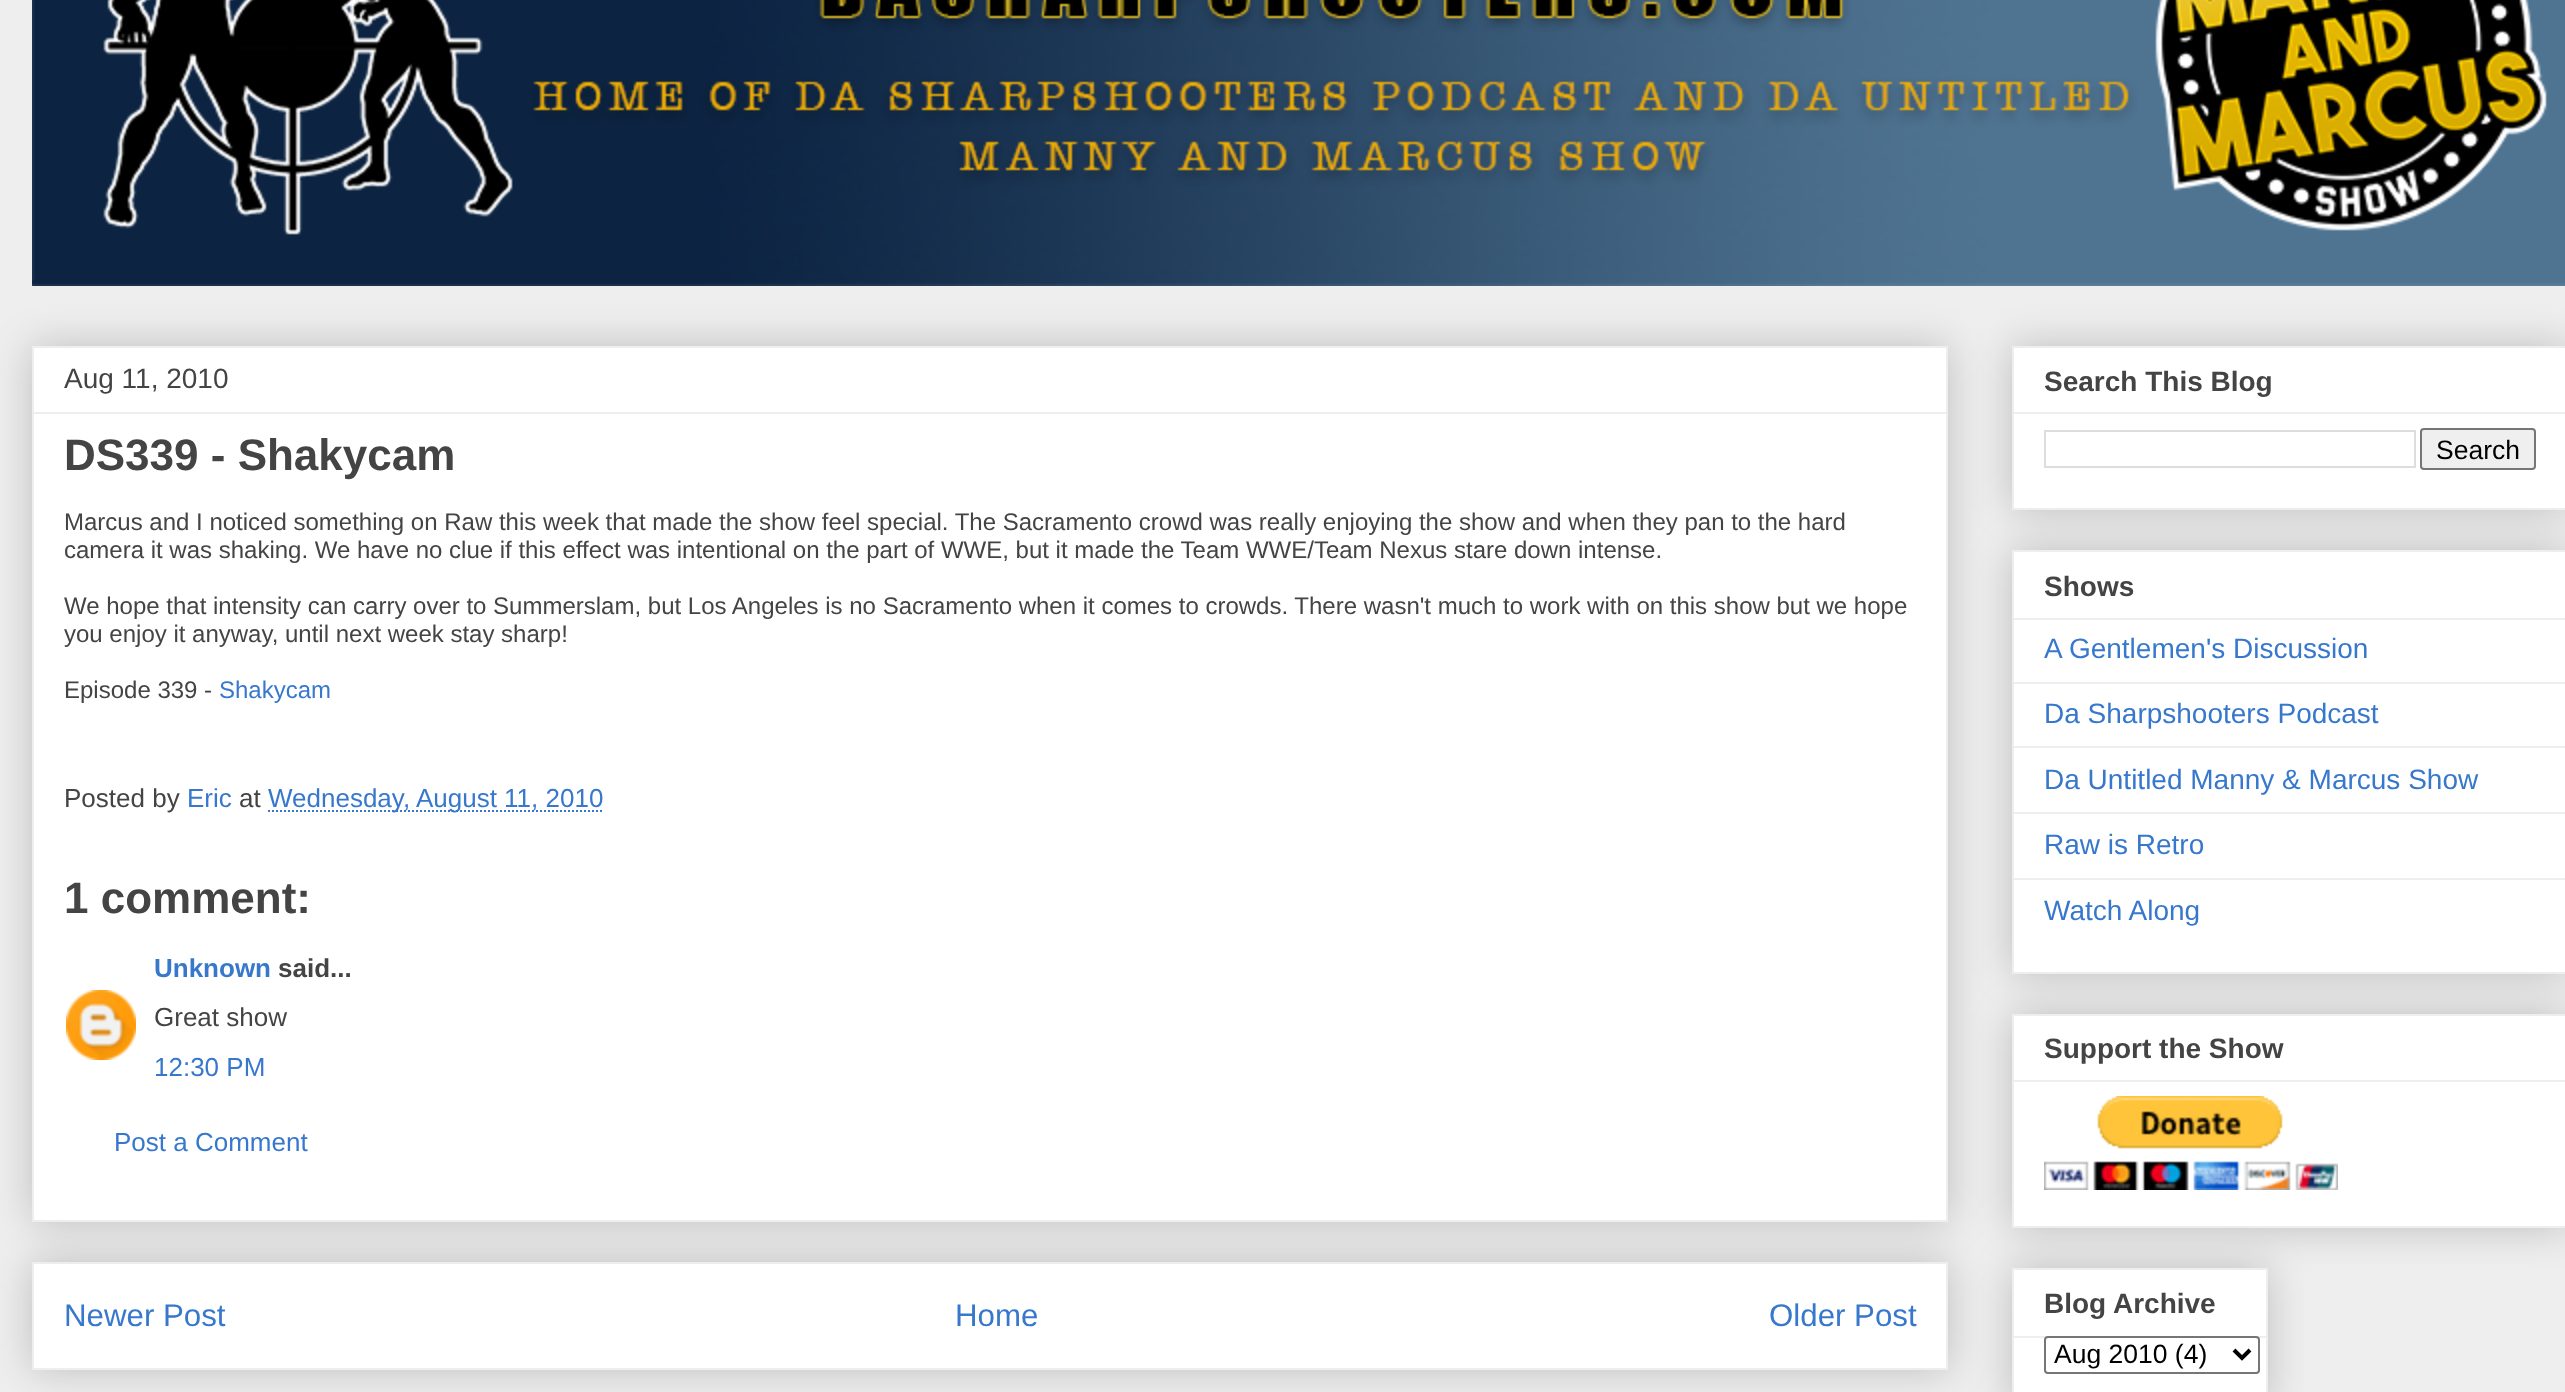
async function draw(canvas) {
	canvas.width = 2565;
	canvas.height = 1392;
	const c = canvas.getContext('2d');
	c.miterLimit = 4;
	c.fontKerning = 'normal';
	async function loadImage(src) {
		const img = new Image();
		img.src = src;
		await img.decode();
		return img;
	}

	c.fillStyle = '#eee';
	c.fillRect(0, 0, 2565, 1392);
	c.drawImage(await loadImage('img1.png'), 32, 0, 2533, 286);
	c.fillStyle = '#00000033';
	c.filter = 'blur(20px)';
	c.beginPath();
	c.rect(32, 1262, 1916, 108);
	c.fill();
	c.filter = 'none';
	c.fillStyle = '#fff';
	c.beginPath();
	c.rect(33, 1263, 1914, 106);
	c.fill();
	c.strokeStyle = '#eee';
	c.lineWidth = 2;
	c.stroke();
	c.fillStyle = '#00000033';
	c.filter = 'blur(20px)';
	c.beginPath();
	c.rect(32, 346, 1916, 876);
	c.fill();
	c.filter = 'none';
	c.fillStyle = '#fff';
	c.beginPath();
	c.rect(33, 347, 1914, 874);
	c.fill();
	c.stroke();
	c.font = '28px Liberation Sans';
	c.fillStyle = '#444';
	c.fillText('Aug 11, 2010', 64, 388);
	c.fillStyle = '#eee';
	c.fillRect(34, 412, 1912, 2);
	c.font = 'bold 44px Liberation Sans';
	c.fillStyle = '#444';
	c.fillText('DS339 - Shakycam', 64, 470);
	c.font = '24px Liberation Sans';
	for (const [text, x, y] of [
		['Marcus and I noticed something on Raw this week that made the show feel special. The Sacramento crowd was really enjoying the show and when they pan to the hard', 64, 530],
		['camera it was shaking. We have no clue if this effect was intentional on the part of WWE, but it made the Team WWE/Team Nexus stare down intense.', 64, 558],
		['We hope that intensity can carry over to Summerslam, but Los Angeles is no Sacramento when it comes to crowds. There wasn\'t much to work with on this show but we hope', 64, 614],
		['you enjoy it anyway, until next week stay sharp!', 64, 642],
		['Episode 339 -', 64, 698],
	]) {
		c.fillText(text, x, y);
	}
	c.fillStyle = '#3778cd';
	c.fillText('Shakycam', 219, 698);
	c.font = '26px Liberation Sans';
	c.fillStyle = '#444';
	c.fillText('Posted by', 64, 807);
	c.fillStyle = '#3778cd';
	c.fillText('Eric', 187, 807);
	c.fillStyle = '#444';
	c.fillText('at', 239, 807);
	c.beginPath();
	c.moveTo(268, 811);
	c.lineTo(603, 811);
	c.strokeStyle = '#3778cd';
	c.setLineDash([2, 2]);
	c.stroke();
	c.fillStyle = '#3778cd';
	c.fillText('Wednesday, August 11, 2010', 268, 807);
	c.font = 'bold 44px Liberation Sans';
	c.fillStyle = '#444';
	c.fillText('1 comment:', 64, 913);
	c.font = 'bold 26px Liberation Sans';
	c.fillStyle = '#3778cd';
	c.fillText('Unknown', 154, 977);
	c.fillStyle = '#444';
	c.fillText('said...', 278, 977);
	c.drawImage(await loadImage('img2.png'), 66, 990, 70, 70);
	c.font = '26px Liberation Sans';
	c.fillText('Great show', 154, 1026);
	c.fillStyle = '#3778cd';
	c.fillText('12:30 PM', 154, 1076);
	c.fillText('Post a Comment', 114, 1151);
	c.font = '31.25px Liberation Sans';
	for (const [text, x, y] of [
		['Newer Post', 64, 1326],
		['Home', 955, 1326],
		['Older Post', 1769, 1326],
	]) {
		c.fillText(text, x, y);
	}
	c.fillStyle = '#00000033';
	c.filter = 'blur(20px)';
	c.beginPath();
	c.rect(2012, 346, 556, 164);
	c.fill();
	c.filter = 'none';
	c.fillStyle = '#fff';
	c.beginPath();
	c.rect(2013, 347, 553, 162);
	c.fill();
	c.strokeStyle = '#eee';
	c.setLineDash([]);
	c.stroke();
	c.font = 'bold 28px Liberation Sans';
	c.fillStyle = '#444';
	c.fillText('Search This Blog', 2044, 391);
	c.fillStyle = '#eee';
	c.fillRect(2014, 412, 551, 2);
	c.strokeStyle = '#ddd';
	c.strokeRect(2045, 431, 370, 36);
	c.fillStyle = '#efefef';
	c.beginPath();
	c.roundRect(2421, 429, 114, 40, 3);
	c.fill();
	c.strokeStyle = '#767676';
	c.stroke();
	c.font = '26.5px Liberation Sans';
	c.fillStyle = '#000';
	c.fillText('Search', 2436, 459);
	c.fillStyle = '#00000033';
	c.filter = 'blur(20px)';
	c.beginPath();
	c.rect(2012, 550, 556, 424);
	c.fill();
	c.filter = 'none';
	c.fillStyle = '#fff';
	c.beginPath();
	c.rect(2013, 551, 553, 422);
	c.fill();
	c.strokeStyle = '#eee';
	c.stroke();
	c.font = 'bold 28px Liberation Sans';
	c.fillStyle = '#444';
	c.fillText('Shows', 2044, 596);
	c.fillStyle = '#eee';
	c.fillRect(2014, 618, 551, 2);
	c.font = '28px Liberation Sans';
	c.fillStyle = '#3778cd';
	c.fillText('A Gentlemen\'s Discussion', 2044, 658);
	c.fillStyle = '#eee';
	c.fillRect(2014, 682, 551, 2);
	c.fillStyle = '#3778cd';
	c.fillText('Da Sharpshooters Podcast', 2044, 723);
	c.fillStyle = '#eee';
	c.fillRect(2014, 746, 551, 2);
	c.fillStyle = '#3778cd';
	c.fillText('Da Untitled Manny & Marcus Show', 2044, 789);
	c.fillStyle = '#eee';
	c.fillRect(2014, 812, 551, 2);
	c.fillStyle = '#3778cd';
	c.fillText('Raw is Retro', 2044, 854);
	c.fillStyle = '#eee';
	c.fillRect(2014, 878, 551, 2);
	c.fillStyle = '#3778cd';
	c.fillText('Watch Along', 2044, 920);
	c.fillStyle = '#00000033';
	c.filter = 'blur(20px)';
	c.beginPath();
	c.rect(2012, 1014, 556, 214);
	c.fill();
	c.filter = 'none';
	c.fillStyle = '#fff';
	c.beginPath();
	c.rect(2013, 1015, 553, 212);
	c.fill();
	c.stroke();
	c.font = 'bold 28px Liberation Sans';
	c.fillStyle = '#444';
	c.fillText('Support the Show', 2044, 1058);
	c.fillStyle = '#eee';
	c.fillRect(2014, 1080, 551, 2);
	c.drawImage(await loadImage('img3.png'), 2044, 1096, 294, 94);
	c.fillStyle = '#00000033';
	c.filter = 'blur(20px)';
	c.beginPath();
	c.rect(2012, 1268, 256, 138);
	c.fill();
	c.filter = 'none';
	c.fillStyle = '#fff';
	c.beginPath();
	c.rect(2013, 1269, 254, 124);
	c.fill();
	c.stroke();
	c.fillStyle = '#444';
	c.fillText('Blog Archive', 2044, 1313);
	c.fillStyle = '#eee';
	c.fillRect(2014, 1336, 252, 2);
	c.fillStyle = '#fff';
	c.beginPath();
	c.roundRect(2045, 1337, 214, 36, 3);
	c.fill();
	c.strokeStyle = '#767676';
	c.stroke();
	c.beginPath();
	c.moveTo(2234, 1350);
	c.lineTo(2242, 1358);
	c.lineTo(2250, 1350);
	c.strokeStyle = '#000';
	c.lineWidth = 4;
	c.stroke();
	c.font = '26.5px Liberation Sans';
	c.fillStyle = '#000';
	c.fillText('Aug 2010 (4)', 2054, 1363);
}

draw(document.querySelector('canvas'));
